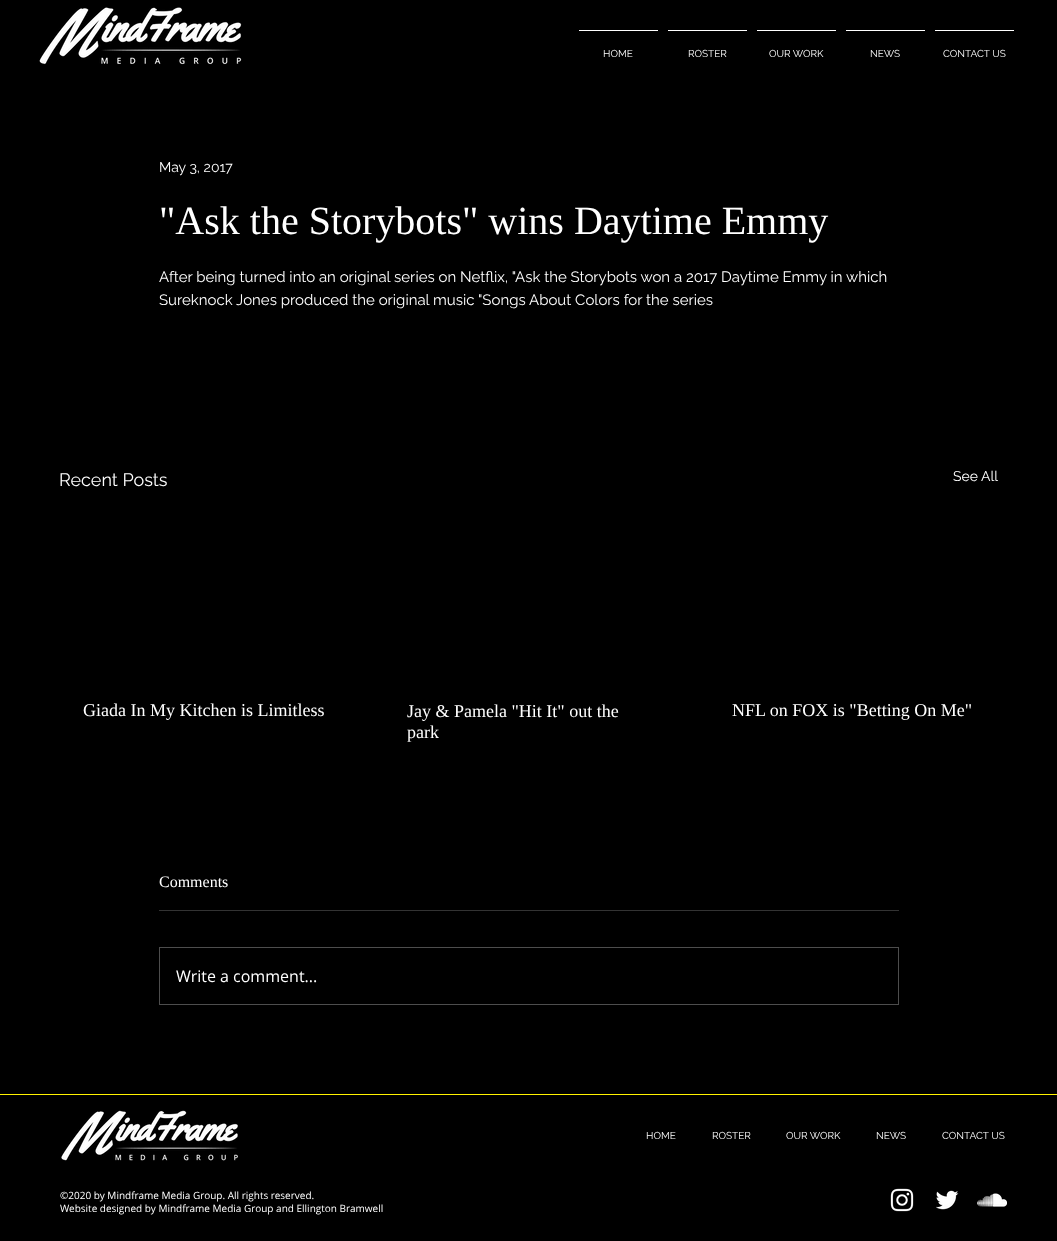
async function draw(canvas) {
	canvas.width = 1057;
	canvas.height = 1241;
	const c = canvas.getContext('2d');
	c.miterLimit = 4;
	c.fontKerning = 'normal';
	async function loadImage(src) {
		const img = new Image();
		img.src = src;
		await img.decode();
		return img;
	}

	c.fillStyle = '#000';
	c.fillRect(0, 0, 1057, 1241);
	c.drawImage(await loadImage('img1.png'), 39, 7, 203, 58);
	c.fillStyle = '#fff';
	c.fillRect(579, 30, 79, 1);
	c.font = '10px Raleway';
	c.fillText('HOME', 603, 57);
	c.fillRect(668, 30, 79, 1);
	c.fillText('ROSTER', 688, 57);
	c.fillRect(757, 30, 79, 1);
	c.fillText('OUR WORK', 769, 57);
	c.fillRect(846, 30, 79, 1);
	c.fillText('NEWS', 870, 57);
	c.fillRect(935, 30, 79, 1);
	c.fillText('CONTACT US', 943, 57);
	c.font = '14px Raleway';
	c.fillText('May 3, 2017', 159, 172);
	c.font = '40px Liberation Serif';
	c.fillText('"Ask the Storybots" wins Daytime Emmy', 159, 234);
	c.font = '15px Raleway';
	c.fillText('After being turned into an original series on Netflix, "Ask the Storybots won a 2017 Daytime Emmy in which', 159, 282);
	c.fillText('Sureknock Jones produced the original music "Songs About Colors for the series', 159, 305);
	c.font = '18px Raleway';
	c.fillText('Recent Posts', 59, 486);
	c.font = '14px Raleway';
	c.fillText('See All', 953, 481);
	c.font = '18px Liberation Serif';
	for (const [text, x, y] of [
		['Giada In My Kitchen is Limitless', 83, 716],
		['Jay & Pamela "Hit It" out the', 407, 717],
		['park', 407, 738],
		['NFL on FOX is "Betting On Me"', 732, 716],
	]) {
		c.fillText(text, x, y);
	}
	c.font = '16px Liberation Serif';
	c.fillText('Comments', 159, 887);
	c.fillStyle = '#333';
	c.fillRect(159, 910, 740, 1);
	c.strokeStyle = '#4d4d4d';
	c.strokeRect(159.5, 947.5, 739, 57);
	c.font = '16px Open Sans';
	c.fillStyle = '#fff';
	c.fillText('Write a comment...', 176, 982);
	c.fillStyle = '#fff200';
	c.fillRect(0, 1094, 1057, 1);
	c.drawImage(await loadImage('img2.png'), 61, 1110, 177, 51);
	c.font = '10px Raleway';
	c.fillStyle = '#fff';
	for (const [text, x, y] of [
		['HOME', 646, 1139],
		['ROSTER', 712, 1139],
		['OUR WORK', 786, 1139],
		['NEWS', 876, 1139],
		['CONTACT US', 942, 1139],
	]) {
		c.fillText(text, x, y);
	}
	c.font = '10px Open Sans';
	c.fillText('©2020 by Mindframe Media Group. All rights reserved.', 60, 1199);
	c.fillText('Website designed by Mindframe Media Group and Ellington Bramwell', 60, 1212);
	c.drawImage(await loadImage('img3.png'), 890, 1188, 24, 24);
	c.drawImage(await loadImage('img4.png'), 936, 1190, 23, 20);
	c.drawImage(await loadImage('img5.png'), 977, 1193, 30, 14);
}

draw(document.querySelector('canvas'));
